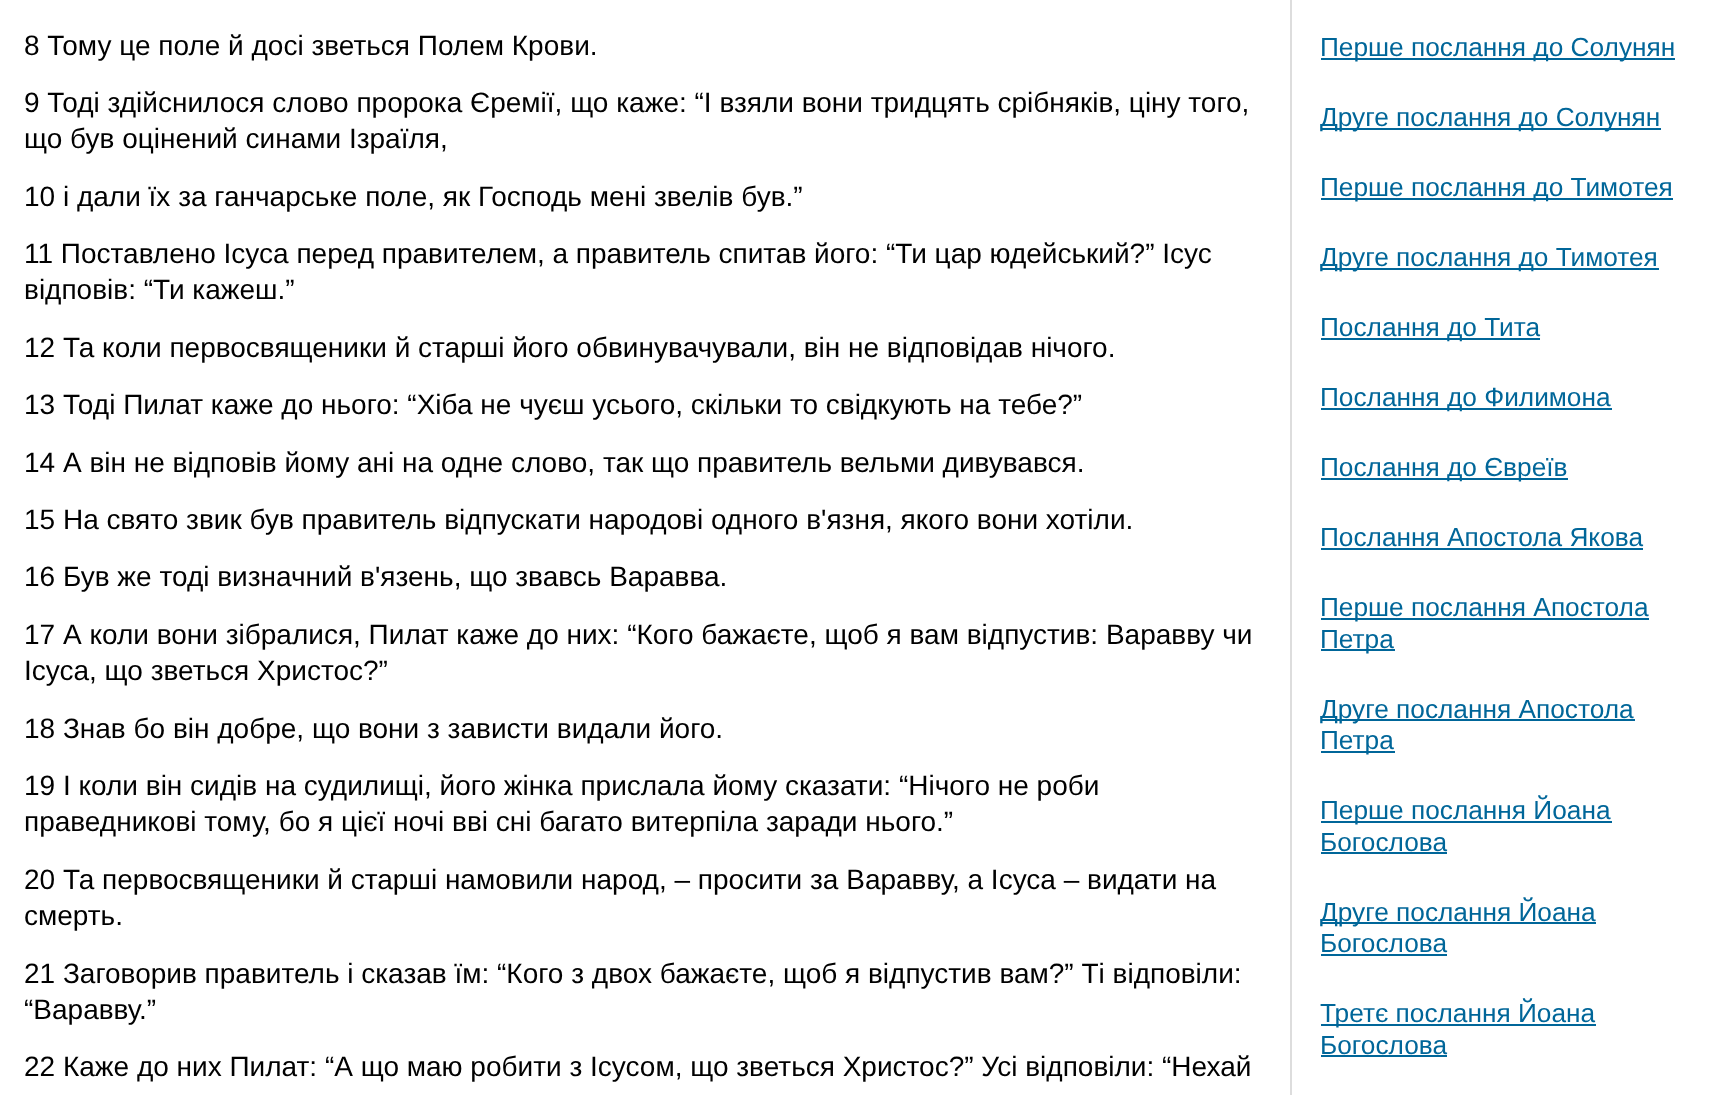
async function draw(canvas) {
	canvas.width = 1719;
	canvas.height = 1095;
	const c = canvas.getContext('2d');
	c.miterLimit = 4;
	c.fontKerning = 'normal';

	c.fillStyle = '#fff';
	c.fillRect(0, 0, 1719, 1095);
	c.font = '28px Liberation Sans';
	c.fillStyle = '#000';
	for (const [text, x, y] of [
		['8 Тому це поле й досі зветься Полем Крови.', 24, 55],
		['9 Тоді здійснилося слово пророка Єремії, що каже: “І взяли вони тридцять срібняків, ціну того,', 24, 112],
		['що був оцінений синами Ізраїля,', 24, 148],
		['10 і дали їх за ганчарське поле, як Господь мені звелів був.”', 24, 206],
		['11 Поставлено Ісуса перед правителем, а правитель спитав його: “Ти цар юдейський?” Ісус', 24, 263],
		['відповів: “Ти кажеш.”', 24, 299],
		['12 Та коли первосвященики й старші його обвинувачували, він не відповідав нічого.', 24, 357],
		['13 Тоді Пилат каже до нього: “Хіба не чуєш усього, скільки то свідкують на тебе?”', 24, 414],
		['14 А він не відповів йому ані на одне слово, так що правитель вельми дивувався.', 24, 472],
		['15 На свято звик був правитель відпускати народові одного в\'язня, якого вони хотіли.', 24, 529],
		['16 Був же тоді визначний в\'язень, що звавсь Варавва.', 24, 586],
		['17 А коли вони зібралися, Пилат каже до них: “Кого бажаєте, щоб я вам відпустив: Варавву чи', 24, 644],
		['Ісуса, що зветься Христос?”', 24, 680],
		['18 Знав бо він добре, що вони з зависти видали його.', 24, 738],
		['19 І коли він сидів на судилищі, його жінка прислала йому сказати: “Нічого не роби', 24, 795],
		['праведникові тому, бо я цієї ночі вві сні багато витерпіла заради нього.”', 24, 831],
		['20 Та первосвященики й старші намовили народ, – просити за Варавву, а Ісуса – видати на', 24, 889],
		['смерть.', 24, 925],
		['21 Заговорив правитель і сказав їм: “Кого з двох бажаєте, щоб я відпустив вам?” Ті відповіли:', 24, 983],
		['“Варавву.”', 24, 1019],
		['22 Каже до них Пилат: “А що маю робити з Ісусом, що зветься Христос?” Усі відповіли: “Нехай', 24, 1076],
	]) {
		c.fillText(text, x, y);
	}
	c.fillStyle = '#ddd';
	c.fillRect(1290, 0, 2, 1095);
	c.fillStyle = '#069';
	c.fillRect(1321, 58, 354, 2);
	c.font = '26.25px Liberation Sans';
	c.fillText('Перше послання до Солунян', 1320, 56);
	c.fillRect(1321, 128, 340, 2);
	c.fillText('Друге послання до Солунян', 1320, 126);
	c.fillRect(1321, 198, 352, 2);
	c.fillText('Перше послання до Тимотея', 1320, 196);
	c.fillRect(1321, 268, 338, 2);
	c.fillText('Друге послання до Тимотея', 1320, 266);
	c.fillRect(1321, 338, 219, 2);
	c.fillText('Послання до Тита', 1320, 336);
	c.fillRect(1321, 408, 291, 2);
	c.fillText('Послання до Филимона', 1320, 406);
	c.fillRect(1321, 478, 247, 2);
	c.fillText('Послання до Євреїв', 1320, 476);
	c.fillText('Послання Апостола Якова', 1320, 546);
	c.fillRect(1321, 548, 322, 2);
	c.fillRect(1321, 618, 328, 2);
	c.fillText('Перше послання Апостола', 1320, 616);
	c.fillRect(1321, 649, 74, 2);
	c.fillText('Петра', 1320, 648);
	c.fillRect(1321, 719, 314, 2);
	c.fillText('Друге послання Апостола', 1320, 718);
	c.fillRect(1321, 751, 74, 2);
	c.fillText('Петра', 1320, 749);
	c.fillRect(1321, 821, 291, 2);
	c.fillText('Перше послання Йоана', 1320, 819);
	c.fillText('Богослова', 1320, 851);
	c.fillRect(1321, 852, 126, 2);
	c.fillRect(1321, 922, 275, 2);
	c.fillText('Друге послання Йоана', 1320, 921);
	c.fillText('Богослова', 1320, 952);
	c.fillRect(1321, 954, 126, 2);
	c.fillRect(1321, 1024, 275, 2);
	c.fillText('Третє послання Йоана', 1320, 1022);
	c.fillText('Богослова', 1320, 1054);
	c.fillRect(1321, 1055, 126, 2);
}

draw(document.querySelector('canvas'));
